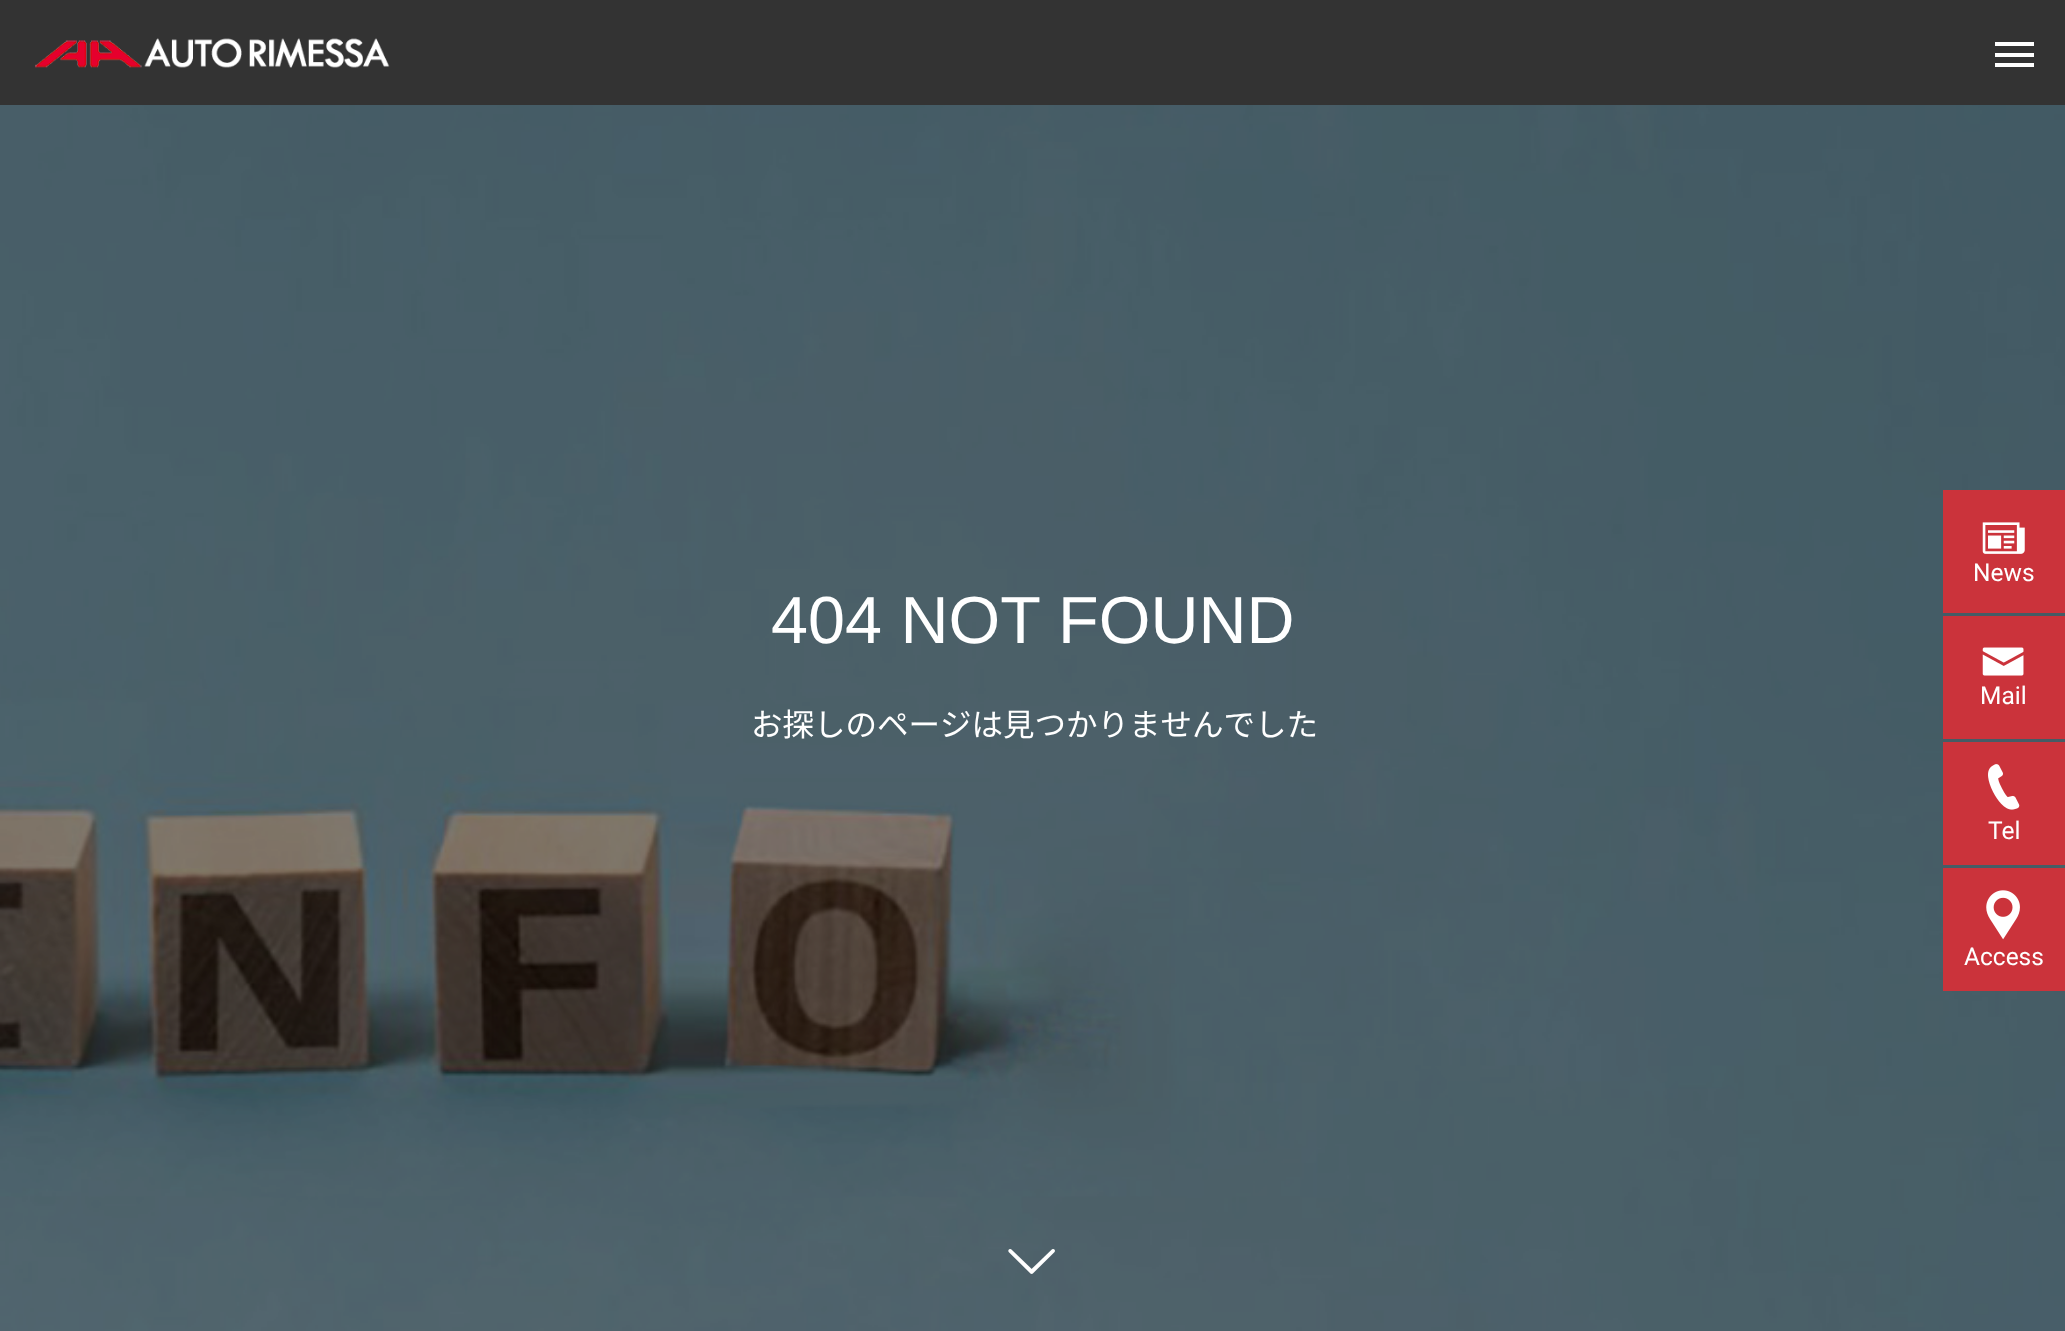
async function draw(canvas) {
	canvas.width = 2065;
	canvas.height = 1331;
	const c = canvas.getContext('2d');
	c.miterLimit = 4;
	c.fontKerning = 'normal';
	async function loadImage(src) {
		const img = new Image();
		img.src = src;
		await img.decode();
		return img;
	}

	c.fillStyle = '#fff';
	c.fillRect(0, 0, 2065, 1331);
	c.fillStyle = '#333';
	c.fillRect(0, 0, 2065, 105);
	c.drawImage(await loadImage('img1.png'), 35, 38, 355, 30);
	for (const [x, y, w, h, color] of [
		[1995, 42, 39, 4, '#fff'],
		[1995, 53, 39, 4, '#fff'],
		[1995, 63, 39, 4, '#fff'],
	]) {
		c.fillStyle = color;
		c.fillRect(x, y, w, h);
	}
	c.drawImage(await loadImage('img2.png'), 0, 105, 2065, 1226);
	c.font = '66.5px Liberation Sans';
	c.fillText('404 NOT FOUND', 771, 643);
	c.font = '31.5px Noto Sans JP';
	c.fillText('お探しのページは見つかりませんでした', 751, 736);
	c.drawImage(await loadImage('img3.png'), 1008, 1249, 47, 25);
	c.fillStyle = '#cb333b';
	c.fillRect(1943, 490, 122, 123);
	c.drawImage(await loadImage('img4.png'), 1982, 522, 43, 32);
	c.font = '24.5px Roboto';
	c.fillStyle = '#fff';
	c.fillText('News', 1973, 581);
	c.fillStyle = '#cb333b';
	c.fillRect(1943, 616, 122, 123);
	c.drawImage(await loadImage('img5.png'), 1982, 647, 42, 29);
	c.fillStyle = '#fff';
	c.fillText('Mail', 1980, 704);
	c.fillStyle = '#cb333b';
	c.fillRect(1943, 742, 122, 123);
	c.drawImage(await loadImage('img6.png'), 1988, 764, 32, 46);
	c.fillStyle = '#fff';
	c.fillText('Tel', 1988, 839);
	c.fillStyle = '#cb333b';
	c.fillRect(1943, 868, 122, 123);
	c.drawImage(await loadImage('img7.png'), 1986, 890, 34, 50);
	c.fillStyle = '#fff';
	c.fillText('Access', 1964, 965);
}

draw(document.querySelector('canvas'));
